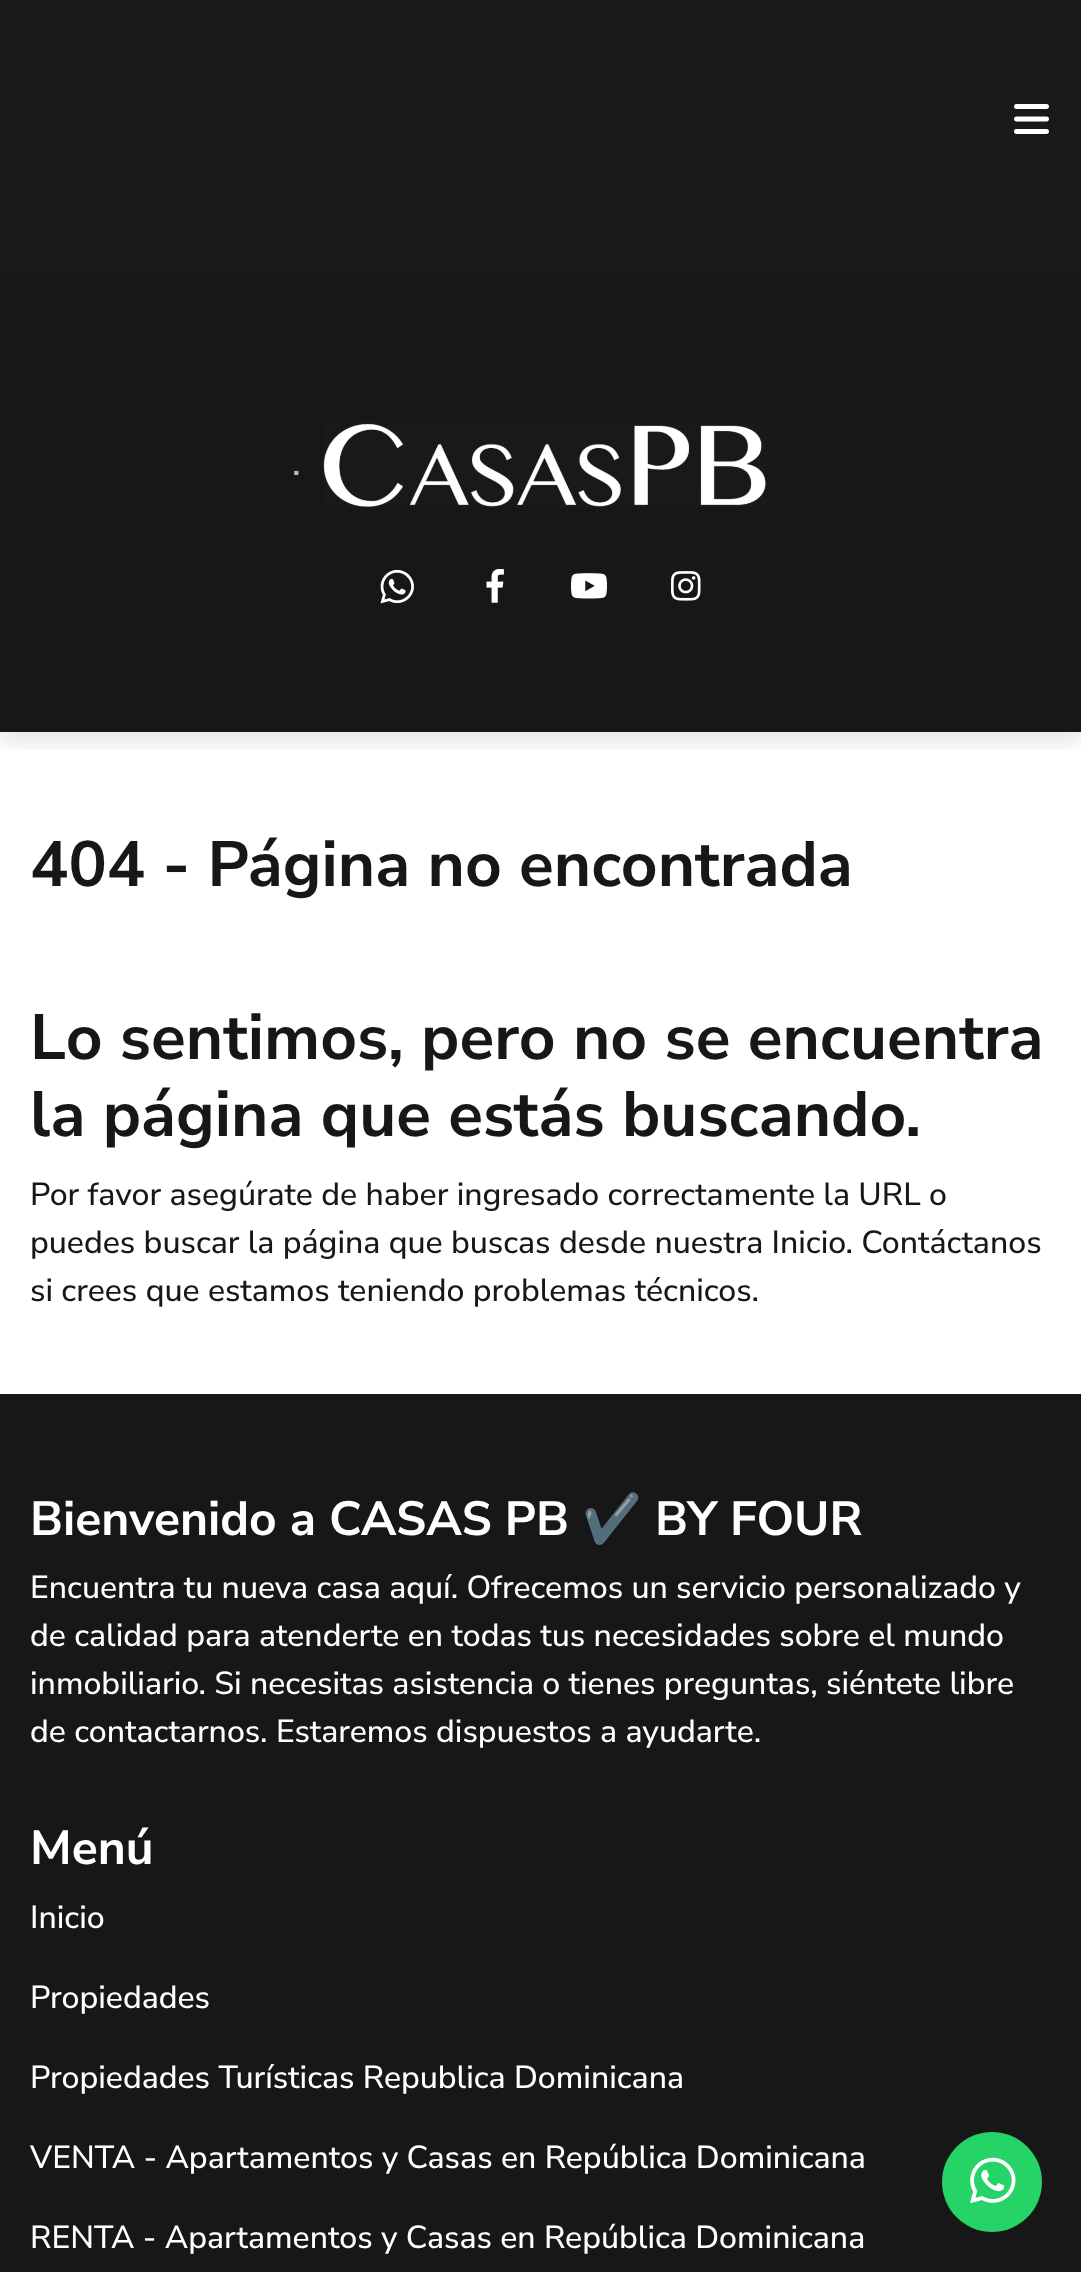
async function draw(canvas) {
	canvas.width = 1081;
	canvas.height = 2272;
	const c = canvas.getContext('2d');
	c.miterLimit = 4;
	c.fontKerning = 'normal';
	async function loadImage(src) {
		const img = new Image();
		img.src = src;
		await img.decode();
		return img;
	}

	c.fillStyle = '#fff';
	c.fillRect(0, 0, 1081, 2272);
	c.fillStyle = '#191919';
	c.fillRect(0, 0, 1081, 272);
	c.save();
	c.beginPath();
	c.rect(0, 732, 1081, 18);
	c.clip();
	c.fillStyle = '#0000001a';
	c.filter = 'blur(10px)';
	c.beginPath();
	c.rect(0, 10, 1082, 732);
	c.fill();
	c.filter = 'none';
	c.restore();
	c.drawImage(await loadImage('img1.png'), 1014, 104, 35, 30);
	c.fillStyle = '#171717';
	c.fillRect(0, 272, 1081, 460);
	c.font = '500 37px Nunito Sans';
	c.fillStyle = '#bbb';
	c.fillText('.', 292, 475);
	c.drawImage(await loadImage('img2.png'), 323, 423, 443, 84);
	c.drawImage(await loadImage('img3.png'), 380, 569, 34, 35);
	c.drawImage(await loadImage('img4.png'), 486, 569, 18, 34);
	c.drawImage(await loadImage('img5.png'), 571, 573, 36, 26);
	c.drawImage(await loadImage('img6.png'), 671, 571, 30, 30);
	c.font = 'bold 64px Nunito Sans';
	c.fillStyle = '#171717';
	for (const [text, x, y] of [
		['404 - Página no encontrada', 30, 886],
		['Lo sentimos, pero no se encuentra', 30, 1059],
		['la página que estás buscando.', 30, 1136],
	]) {
		c.fillText(text, x, y);
	}
	c.font = '500 32px Nunito Sans';
	for (const [text, x, y] of [
		['Por favor asegúrate de haber ingresado correctamente la URL o', 30, 1205],
		['puedes buscar la página que buscas desde nuestra Inicio. Contáctanos', 30, 1253],
		['si crees que estamos teniendo problemas técnicos.', 30, 1301],
	]) {
		c.fillText(text, x, y);
	}
	c.fillRect(0, 1394, 1081, 878);
	c.font = 'bold 48px Nunito Sans';
	c.fillStyle = '#fff';
	c.fillText('Bienvenido a CASAS PB', 30, 1535);
	c.font = 'bold 48px Noto Color Emoji';
	c.fillText('✔️', 582, 1535);
	c.font = 'bold 48px Nunito Sans';
	c.fillText('BY FOUR', 655, 1535);
	c.font = '500 32px Nunito Sans';
	for (const [text, x, y] of [
		['Encuentra tu nueva casa aquí. Ofrecemos un servicio personalizado y', 30, 1598],
		['de calidad para atenderte en todas tus necesidades sobre el mundo', 30, 1646],
		['inmobiliario. Si necesitas asistencia o tienes preguntas, siéntete libre', 30, 1694],
		['de contactarnos. Estaremos dispuestos a ayudarte.', 30, 1742],
	]) {
		c.fillText(text, x, y);
	}
	c.font = 'bold 48px Nunito Sans';
	c.fillText('Menú', 30, 1864);
	c.font = '500 32px Nunito Sans';
	for (const [text, x, y] of [
		['Inicio', 30, 1928],
		['Propiedades', 30, 2008],
		['Propiedades Turísticas Republica Dominicana', 30, 2088],
		['VENTA - Apartamentos y Casas en República Dominicana', 30, 2168],
		['RENTA - Apartamentos y Casas en República Dominicana', 30, 2248],
	]) {
		c.fillText(text, x, y);
	}
	c.fillStyle = '#25d366';
	c.beginPath();
	c.arc(992, 2182, 50, 0, 2 * Math.PI);
	c.fill();
	c.drawImage(await loadImage('img7.png'), 970, 2157, 46, 47);
}

draw(document.querySelector('canvas'));
